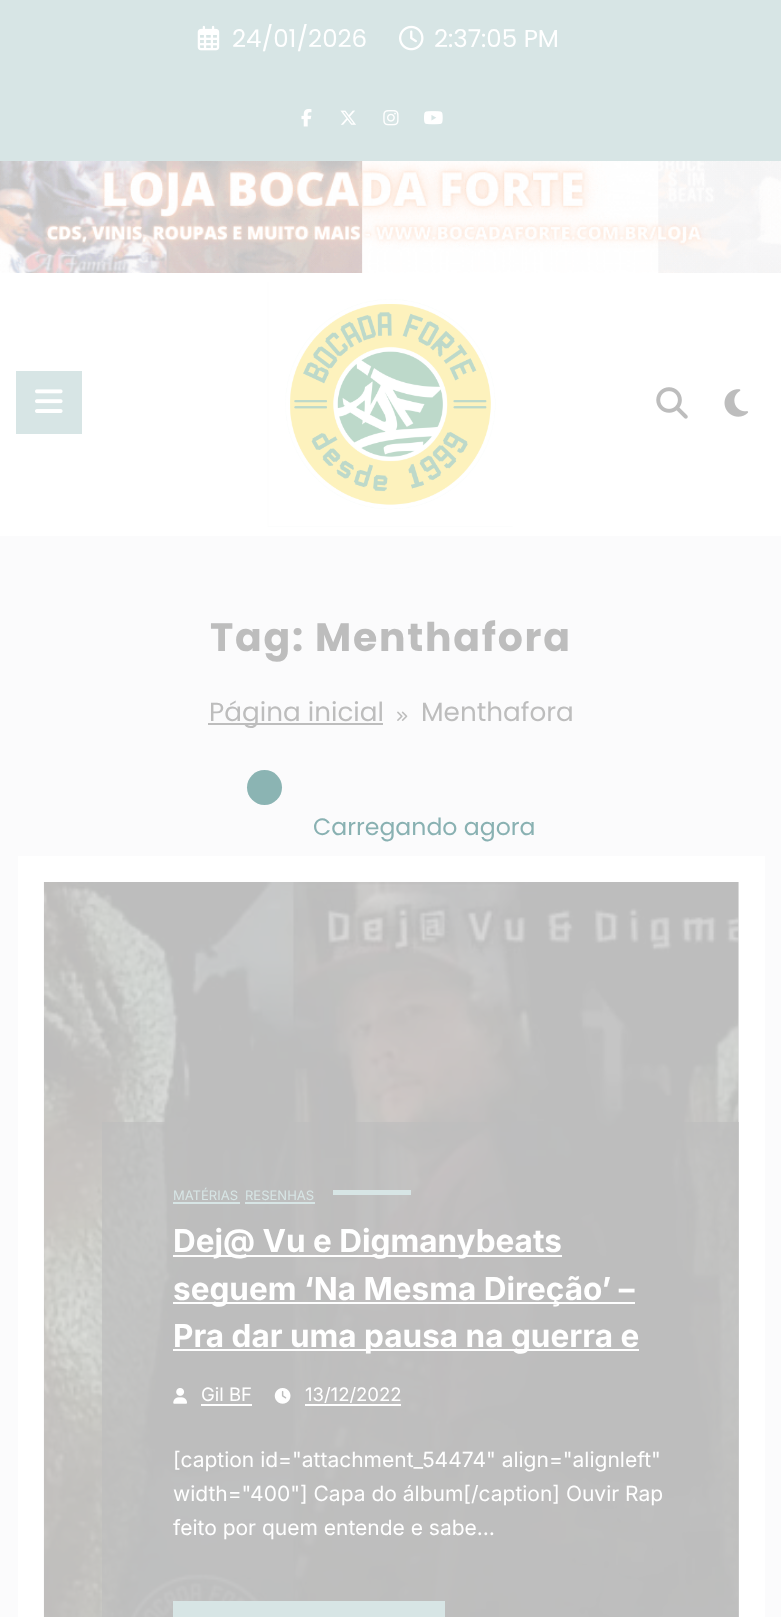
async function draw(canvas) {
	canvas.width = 781;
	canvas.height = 1617;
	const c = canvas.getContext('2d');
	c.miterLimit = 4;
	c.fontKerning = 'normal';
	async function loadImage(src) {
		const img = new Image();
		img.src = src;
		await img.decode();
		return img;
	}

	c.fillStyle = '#fbfbfc';
	c.fillRect(0, 0, 781, 1617);
	c.fillStyle = '#d7e5e5';
	c.fillRect(0, 0, 781, 161);
	c.drawImage(await loadImage('img1.png'), 197, 25, 23, 26);
	c.font = '24.5px Poppins';
	c.fillStyle = '#fff';
	c.fillText('24/01/2026', 232, 47);
	c.drawImage(await loadImage('img2.png'), 399, 25, 25, 26);
	c.fillText('2:37:05 PM', 434, 47);
	c.drawImage(await loadImage('img3.png'), 301, 108, 11, 19);
	c.drawImage(await loadImage('img4.png'), 340, 110, 16, 15);
	c.drawImage(await loadImage('img5.png'), 383, 110, 16, 16);
	c.drawImage(await loadImage('img6.png'), 424, 111, 19, 14);
	c.drawImage(await loadImage('img7.png'), 0, 161, 781, 112);
	c.fillRect(0, 273, 781, 263);
	c.fillStyle = '#d7e5e5';
	c.fillRect(16, 371, 66, 63);
	c.drawImage(await loadImage('img8.png'), 35, 389, 28, 24);
	c.drawImage(await loadImage('img9.png'), 267, 282, 246, 245);
	c.drawImage(await loadImage('img10.png'), 656, 387, 32, 32);
	c.drawImage(await loadImage('img11.png'), 724, 389, 25, 28);
	c.letterSpacing = '1.75px';
	c.font = 'bold 39.4px Poppins';
	c.fillStyle = '#bdbdbd';
	c.fillText('Tag: Menthafora', 210, 651);
	c.fillRect(208, 723, 175, 2);
	c.letterSpacing = '0px';
	c.font = '26.25px Poppins';
	c.fillText('Página inicial', 209, 721);
	c.drawImage(await loadImage('img12.png'), 397, 711, 11, 10);
	c.fillText('Menthafora', 421, 721);
	c.fillStyle = '#8bb4b3';
	c.beginPath();
	c.arc(264.5, 787.5, 17.5, 0, 2 * Math.PI);
	c.fill();
	c.font = '23.6px Poppins';
	c.fillStyle = '#89b1b2';
	c.fillText('Carregando agora', 313, 835);
	c.fillStyle = '#fff';
	c.fillRect(18, 856, 747, 761);
	c.fillStyle = '#e4e4e4';
	c.fillRect(738, 882, 1, 735);
	c.drawImage(await loadImage('img13.png'), 43, 882, 696, 735);
	c.fillStyle = '#bdbdbdb3';
	c.fillRect(102, 1122, 637, 495);
	c.font = '13px Inter';
	c.fillStyle = '#d7e5e5';
	c.fillText('MATÉRIAS', 173, 1200);
	c.fillRect(173, 1202, 67, 2);
	c.fillText('RESENHAS', 245, 1200);
	for (const [x, y, w, h, color] of [
		[245, 1202, 70, 2, '#d7e5e5'],
		[333, 1190, 78, 5, '#d7e5e5'],
		[173, 1255, 389, 2, '#fff'],
	]) {
		c.fillStyle = color;
		c.fillRect(x, y, w, h);
	}
	c.font = 'bold 31.5px Inter';
	c.fillText('Dej@ Vu e Digmanybeats', 173, 1252);
	c.fillRect(173, 1302, 462, 2);
	c.fillText('seguem ‘Na Mesma Direção’ –', 173, 1300);
	c.fillRect(173, 1349, 466, 2);
	c.fillText('Pra dar uma pausa na guerra e', 173, 1347);
	c.drawImage(await loadImage('img14.png'), 173, 1388, 14, 16);
	c.font = '18.5px Inter';
	c.fillText('Gil BF', 201, 1401);
	c.fillRect(201, 1404, 51, 2);
	c.drawImage(await loadImage('img15.png'), 274, 1388, 17, 16);
	c.fillText('13/12/2022', 305, 1401);
	c.fillRect(305, 1404, 96, 2);
	c.font = '21px Inter';
	for (const [text, x, y] of [
		['[caption id="attachment_54474" align="alignleft"', 173, 1467],
		['width="400"] Capa do álbum[/caption] Ouvir Rap', 173, 1501],
		['feito por quem entende e sabe…', 173, 1535],
	]) {
		c.fillText(text, x, y);
	}
	c.fillStyle = '#d7e5e5';
	c.fillRect(173, 1601, 272, 16);
}

draw(document.querySelector('canvas'));
